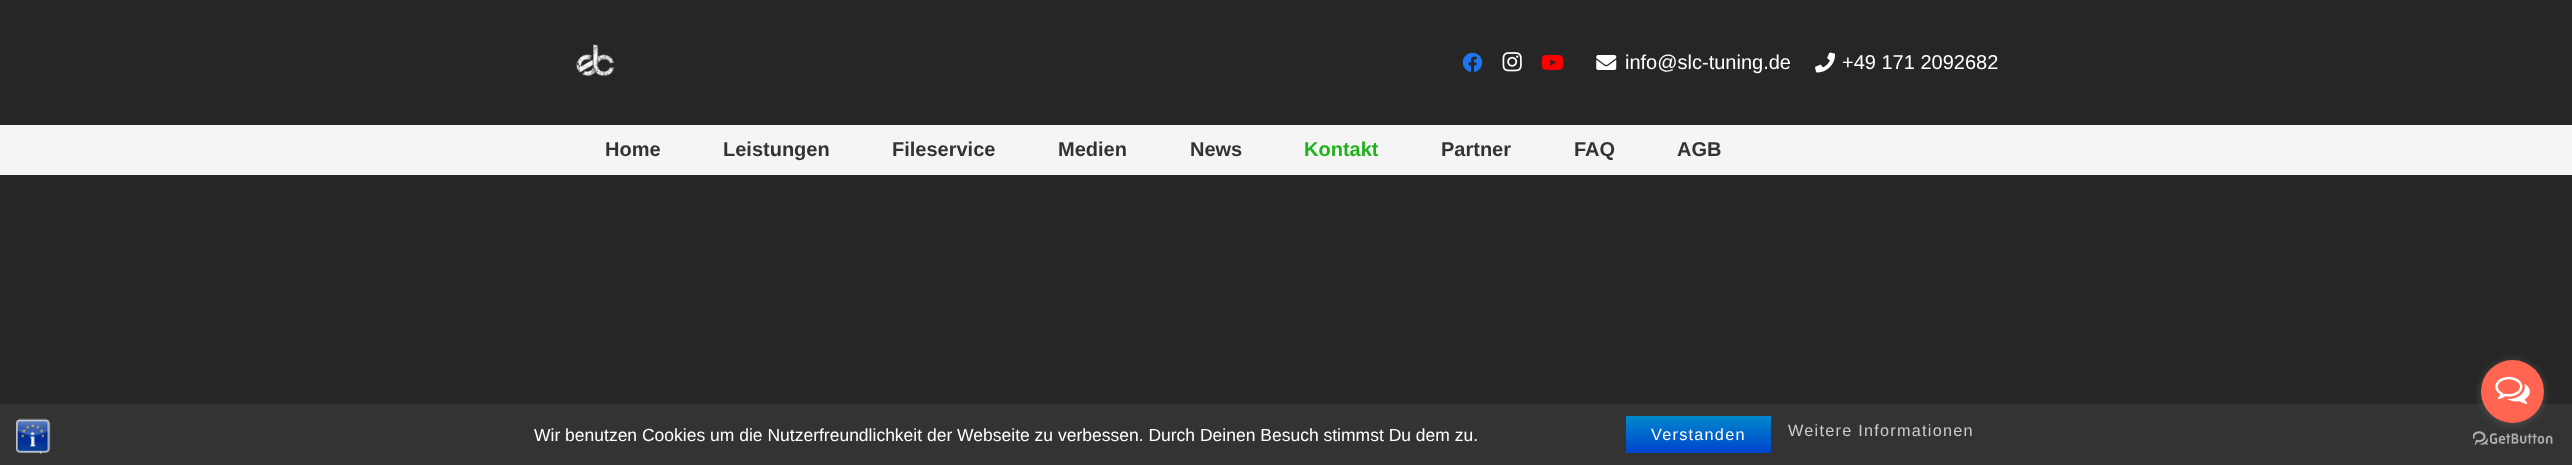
async function draw(canvas) {
	canvas.width = 2572;
	canvas.height = 465;
	const c = canvas.getContext('2d');
	c.miterLimit = 4;
	c.fontKerning = 'normal';
	async function loadImage(src) {
		const img = new Image();
		img.src = src;
		await img.decode();
		return img;
	}
	let gradient;

	c.fillStyle = '#262626';
	c.fillRect(0, 0, 2572, 465);
	c.drawImage(await loadImage('img1.png'), 576, 44, 38, 33);
	c.drawImage(await loadImage('img2.png'), 1462, 52, 21, 20);
	c.drawImage(await loadImage('img3.png'), 1502, 52, 20, 20);
	c.drawImage(await loadImage('img4.png'), 1541, 55, 23, 15);
	c.drawImage(await loadImage('img5.png'), 1596, 55, 21, 15);
	c.font = '20px Liberation Sans';
	c.fillStyle = '#fff';
	c.fillText('info@slc-tuning.de', 1625, 69);
	c.drawImage(await loadImage('img6.png'), 1815, 52, 20, 21);
	c.fillText('+49 171 2092682', 1842, 69);
	c.fillStyle = '#f5f5f5';
	c.fillRect(0, 125, 2572, 50);
	c.font = 'bold 20px Liberation Sans';
	c.fillStyle = '#333';
	for (const [text, x, y] of [
		['Home', 605, 156],
		['Leistungen', 723, 156],
		['Fileservice', 892, 156],
		['Medien', 1058, 156],
		['News', 1190, 156],
	]) {
		c.fillText(text, x, y);
	}
	c.fillStyle = '#21b11e';
	c.fillText('Kontakt', 1304, 156);
	c.fillStyle = '#333';
	for (const [text, x, y] of [
		['Partner', 1441, 156],
		['FAQ', 1574, 156],
		['AGB', 1677, 156],
	]) {
		c.fillText(text, x, y);
	}
	c.fillRect(0, 404, 2572, 61);
	c.drawImage(await loadImage('img7.png'), 16, 418, 35, 36);
	c.font = '17.5px Liberation Sans';
	c.fillStyle = '#fff';
	c.fillText('Wir benutzen Cookies um die Nutzerfreundlichkeit der Webseite zu verbessen. Durch Deinen Besuch stimmst Du dem zu.', 534, 441);
	gradient = c.createLinearGradient(1699, 416, 1699, 453);
	gradient.addColorStop(0, '#08c');
	gradient.addColorStop(1, '#04c');
	c.fillStyle = gradient;
	c.fillRect(1626, 416, 145, 37);
	c.letterSpacing = '1.25px';
	c.font = '16.25px Liberation Sans';
	c.fillStyle = '#fff';
	c.fillText('Verstanden', 1651, 440);
	c.fillStyle = '#ccc';
	c.fillText('Weitere Informationen', 1788, 436);
	c.drawImage(await loadImage('img9.png'), 2473, 431, 80, 14);
	c.fillStyle = '#88888866';
	c.filter = 'blur(4.5px)';
	c.beginPath();
	c.roundRect(2481, 361, 63, 63, 31.5);
	c.fill();
	c.filter = 'none';
	c.fillStyle = '#ff6550';
	c.beginPath();
	c.arc(2512.5, 391.5, 31.5, 0, 2 * Math.PI);
	c.fill();
	c.drawImage(await loadImage('img8.png'), 2495, 376, 35, 28);
}

draw(document.querySelector('canvas'));
